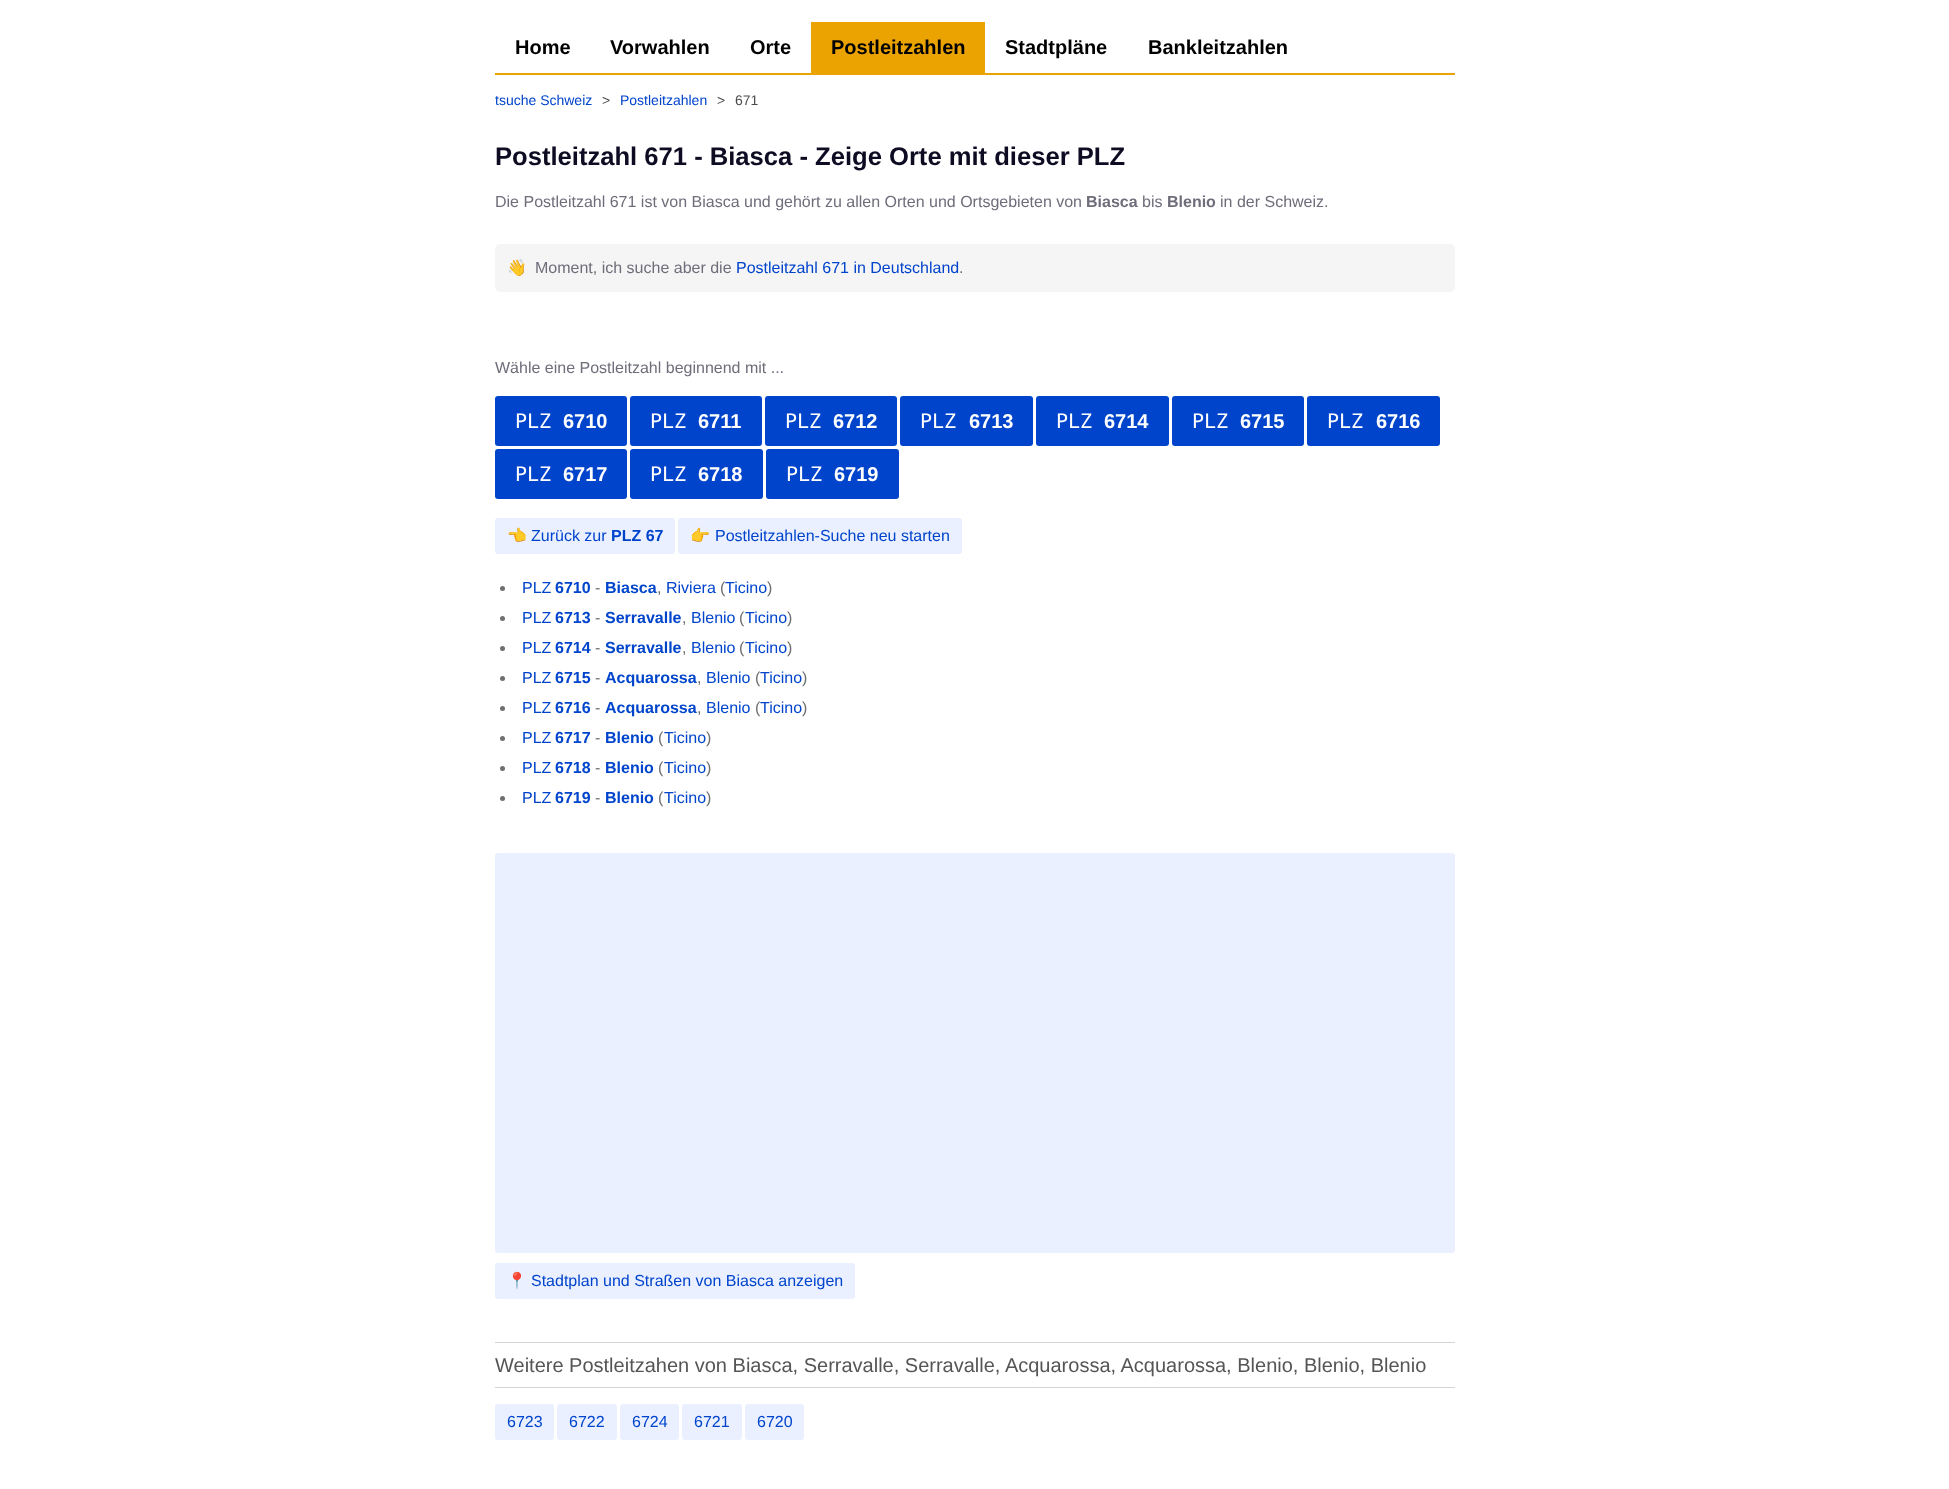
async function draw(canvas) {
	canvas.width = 1949;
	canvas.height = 1489;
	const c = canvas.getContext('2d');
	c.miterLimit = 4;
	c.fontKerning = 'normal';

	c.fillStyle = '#fff';
	c.fillRect(0, 0, 1949, 1489);
	c.fillStyle = '#eba301';
	c.fillRect(495, 73, 960, 2);
	c.font = 'bold 20px Liberation Sans';
	c.fillStyle = '#000';
	for (const [text, x, y] of [
		['Home', 515, 54],
		['Vorwahlen', 610, 54],
		['Orte', 750, 54],
	]) {
		c.fillText(text, x, y);
	}
	c.fillStyle = '#eba301';
	c.fillRect(811, 22, 174, 51);
	c.fillStyle = '#000';
	for (const [text, x, y] of [
		['Postleitzahlen', 831, 54],
		['Stadtpläne', 1005, 54],
		['Bankleitzahlen', 1148, 54],
	]) {
		c.fillText(text, x, y);
	}
	c.font = '14px Liberation Sans';
	c.fillStyle = '#04c';
	c.fillText('tsuche Schweiz', 495, 105);
	c.fillStyle = '#4c4c4c';
	c.fillText('>', 602, 105);
	c.fillStyle = '#04c';
	c.fillText('Postleitzahlen', 620, 105);
	c.fillStyle = '#4c4c4c';
	c.fillText('>', 717, 105);
	c.fillText('671', 735, 105);
	c.font = 'bold 25.6px Liberation Sans';
	c.fillStyle = '#0d0c22';
	c.fillText('Postleitzahl 671 - Biasca - Zeige Orte mit dieser PLZ', 495, 165);
	c.font = '16px Liberation Sans';
	c.fillStyle = '#6e6d7a';
	c.fillText('Die Postleitzahl 671 ist von Biasca und gehört zu allen Orten und Ortsgebieten von', 495, 207);
	c.font = 'bold 16px Liberation Sans';
	c.fillText('Biasca', 1086, 207);
	c.font = '16px Liberation Sans';
	c.fillText('bis', 1142, 207);
	c.font = 'bold 16px Liberation Sans';
	c.fillText('Blenio', 1167, 207);
	c.font = '16px Liberation Sans';
	c.fillText('in der Schweiz.', 1220, 207);
	c.fillStyle = '#f5f5f5';
	c.beginPath();
	c.roundRect(495, 244, 960, 48, 5);
	c.fill();
	c.font = '16px Noto Color Emoji';
	c.fillStyle = '#6e6d7a';
	c.fillText('👋', 507, 273);
	c.font = '16px Liberation Sans';
	c.fillText('Moment, ich suche aber die', 535, 273);
	c.fillStyle = '#04c';
	c.fillText('Postleitzahl 671 in Deutschland', 736, 273);
	c.fillStyle = '#6e6d7a';
	c.fillText('.', 959, 273);
	c.fillText('Wähle eine Postleitzahl beginnend mit ...', 495, 373);
	c.fillStyle = '#04c';
	c.beginPath();
	c.roundRect(495, 396, 132, 50, 3);
	c.fill();
	c.font = '20px DejaVu Sans Mono';
	c.fillStyle = '#fff';
	c.fillText('PLZ', 515, 428);
	c.font = 'bold 20px Liberation Sans';
	c.fillText('6710', 563, 428);
	c.fillStyle = '#04c';
	c.beginPath();
	c.roundRect(630, 396, 132, 50, 3);
	c.fill();
	c.font = '20px DejaVu Sans Mono';
	c.fillStyle = '#fff';
	c.fillText('PLZ', 650, 428);
	c.font = 'bold 20px Liberation Sans';
	c.fillText('6711', 698, 428);
	c.fillStyle = '#04c';
	c.beginPath();
	c.roundRect(765, 396, 132, 50, 3);
	c.fill();
	c.font = '20px DejaVu Sans Mono';
	c.fillStyle = '#fff';
	c.fillText('PLZ', 785, 428);
	c.font = 'bold 20px Liberation Sans';
	c.fillText('6712', 833, 428);
	c.fillStyle = '#04c';
	c.beginPath();
	c.roundRect(900, 396, 133, 50, 3);
	c.fill();
	c.font = '20px DejaVu Sans Mono';
	c.fillStyle = '#fff';
	c.fillText('PLZ', 920, 428);
	c.font = 'bold 20px Liberation Sans';
	c.fillText('6713', 969, 428);
	c.fillStyle = '#04c';
	c.beginPath();
	c.roundRect(1036, 396, 133, 50, 3);
	c.fill();
	c.font = '20px DejaVu Sans Mono';
	c.fillStyle = '#fff';
	c.fillText('PLZ', 1056, 428);
	c.font = 'bold 20px Liberation Sans';
	c.fillText('6714', 1104, 428);
	c.fillStyle = '#04c';
	c.beginPath();
	c.roundRect(1172, 396, 132, 50, 3);
	c.fill();
	c.font = '20px DejaVu Sans Mono';
	c.fillStyle = '#fff';
	c.fillText('PLZ', 1192, 428);
	c.font = 'bold 20px Liberation Sans';
	c.fillText('6715', 1240, 428);
	c.fillStyle = '#04c';
	c.beginPath();
	c.roundRect(1307, 396, 133, 50, 3);
	c.fill();
	c.font = '20px DejaVu Sans Mono';
	c.fillStyle = '#fff';
	c.fillText('PLZ', 1327, 428);
	c.font = 'bold 20px Liberation Sans';
	c.fillText('6716', 1376, 428);
	c.fillStyle = '#04c';
	c.beginPath();
	c.roundRect(495, 449, 132, 50, 3);
	c.fill();
	c.font = '20px DejaVu Sans Mono';
	c.fillStyle = '#fff';
	c.fillText('PLZ', 515, 481);
	c.font = 'bold 20px Liberation Sans';
	c.fillText('6717', 563, 481);
	c.fillStyle = '#04c';
	c.beginPath();
	c.roundRect(630, 449, 133, 50, 3);
	c.fill();
	c.font = '20px DejaVu Sans Mono';
	c.fillStyle = '#fff';
	c.fillText('PLZ', 650, 481);
	c.font = 'bold 20px Liberation Sans';
	c.fillText('6718', 698, 481);
	c.fillStyle = '#04c';
	c.beginPath();
	c.roundRect(766, 449, 133, 50, 3);
	c.fill();
	c.font = '20px DejaVu Sans Mono';
	c.fillStyle = '#fff';
	c.fillText('PLZ', 786, 481);
	c.font = 'bold 20px Liberation Sans';
	c.fillText('6719', 834, 481);
	c.fillStyle = '#eaf0ff';
	c.beginPath();
	c.roundRect(495, 518, 180, 36, 3);
	c.fill();
	c.font = '16px Noto Color Emoji';
	c.fillStyle = '#04c';
	c.fillText('👈', 507, 541);
	c.font = '16px Liberation Sans';
	c.fillText('Zurück zur', 531, 541);
	c.font = 'bold 16px Liberation Sans';
	c.fillText('PLZ 67', 611, 541);
	c.fillStyle = '#eaf0ff';
	c.beginPath();
	c.roundRect(678, 518, 284, 36, 3);
	c.fill();
	c.font = '16px Noto Color Emoji';
	c.fillStyle = '#04c';
	c.fillText('👉', 690, 541);
	c.font = '16px Liberation Sans';
	c.fillText('Postleitzahlen-Suche neu starten', 715, 541);
	c.fillStyle = '#6f6f6f';
	c.beginPath();
	c.arc(502.5, 588.5, 2.5, 0, 2 * Math.PI);
	c.fill();
	c.fillStyle = '#04c';
	c.fillText('PLZ', 522, 593);
	c.font = 'bold 16px Liberation Sans';
	c.fillText('6710', 555, 593);
	c.font = '16px Liberation Sans';
	c.fillStyle = '#6f6f6f';
	c.fillText('-', 595, 593);
	c.font = 'bold 16px Liberation Sans';
	c.fillStyle = '#04c';
	c.fillText('Biasca', 605, 593);
	c.font = '16px Liberation Sans';
	c.fillText('Riviera', 666, 593);
	c.fillStyle = '#6f6f6f';
	c.fillText('(', 720, 593);
	c.fillStyle = '#04c';
	c.fillText('Ticino', 725, 593);
	c.fillStyle = '#6f6f6f';
	c.fillText(')', 767, 593);
	c.fillText(',', 657, 593);
	c.beginPath();
	c.arc(502.5, 618.5, 2.5, 0, 2 * Math.PI);
	c.fill();
	c.fillStyle = '#04c';
	c.fillText('PLZ', 522, 623);
	c.font = 'bold 16px Liberation Sans';
	c.fillText('6713', 555, 623);
	c.font = '16px Liberation Sans';
	c.fillStyle = '#6f6f6f';
	c.fillText('-', 595, 623);
	c.font = 'bold 16px Liberation Sans';
	c.fillStyle = '#04c';
	c.fillText('Serravalle', 605, 623);
	c.font = '16px Liberation Sans';
	c.fillText('Blenio', 691, 623);
	c.fillStyle = '#6f6f6f';
	c.fillText('(', 739, 623);
	c.fillStyle = '#04c';
	c.fillText('Ticino', 745, 623);
	c.fillStyle = '#6f6f6f';
	c.fillText(')', 787, 623);
	c.fillText(',', 682, 623);
	c.beginPath();
	c.arc(502.5, 648.5, 2.5, 0, 2 * Math.PI);
	c.fill();
	c.fillStyle = '#04c';
	c.fillText('PLZ', 522, 653);
	c.font = 'bold 16px Liberation Sans';
	c.fillText('6714', 555, 653);
	c.font = '16px Liberation Sans';
	c.fillStyle = '#6f6f6f';
	c.fillText('-', 595, 653);
	c.font = 'bold 16px Liberation Sans';
	c.fillStyle = '#04c';
	c.fillText('Serravalle', 605, 653);
	c.font = '16px Liberation Sans';
	c.fillText('Blenio', 691, 653);
	c.fillStyle = '#6f6f6f';
	c.fillText('(', 739, 653);
	c.fillStyle = '#04c';
	c.fillText('Ticino', 745, 653);
	c.fillStyle = '#6f6f6f';
	c.fillText(')', 787, 653);
	c.fillText(',', 682, 653);
	c.beginPath();
	c.arc(502.5, 678.5, 2.5, 0, 2 * Math.PI);
	c.fill();
	c.fillStyle = '#04c';
	c.fillText('PLZ', 522, 683);
	c.font = 'bold 16px Liberation Sans';
	c.fillText('6715', 555, 683);
	c.font = '16px Liberation Sans';
	c.fillStyle = '#6f6f6f';
	c.fillText('-', 595, 683);
	c.font = 'bold 16px Liberation Sans';
	c.fillStyle = '#04c';
	c.fillText('Acquarossa', 605, 683);
	c.font = '16px Liberation Sans';
	c.fillText('Blenio', 706, 683);
	c.fillStyle = '#6f6f6f';
	c.fillText('(', 755, 683);
	c.fillStyle = '#04c';
	c.fillText('Ticino', 760, 683);
	c.fillStyle = '#6f6f6f';
	c.fillText(')', 802, 683);
	c.fillText(',', 697, 683);
	c.beginPath();
	c.arc(502.5, 708.5, 2.5, 0, 2 * Math.PI);
	c.fill();
	c.fillStyle = '#04c';
	c.fillText('PLZ', 522, 713);
	c.font = 'bold 16px Liberation Sans';
	c.fillText('6716', 555, 713);
	c.font = '16px Liberation Sans';
	c.fillStyle = '#6f6f6f';
	c.fillText('-', 595, 713);
	c.font = 'bold 16px Liberation Sans';
	c.fillStyle = '#04c';
	c.fillText('Acquarossa', 605, 713);
	c.font = '16px Liberation Sans';
	c.fillText('Blenio', 706, 713);
	c.fillStyle = '#6f6f6f';
	c.fillText('(', 755, 713);
	c.fillStyle = '#04c';
	c.fillText('Ticino', 760, 713);
	c.fillStyle = '#6f6f6f';
	c.fillText(')', 802, 713);
	c.fillText(',', 697, 713);
	c.beginPath();
	c.arc(502.5, 738.5, 2.5, 0, 2 * Math.PI);
	c.fill();
	c.fillStyle = '#04c';
	c.fillText('PLZ', 522, 743);
	c.font = 'bold 16px Liberation Sans';
	c.fillText('6717', 555, 743);
	c.font = '16px Liberation Sans';
	c.fillStyle = '#6f6f6f';
	c.fillText('-', 595, 743);
	c.font = 'bold 16px Liberation Sans';
	c.fillStyle = '#04c';
	c.fillText('Blenio', 605, 743);
	c.font = '16px Liberation Sans';
	c.fillStyle = '#6f6f6f';
	c.fillText('(', 658, 743);
	c.fillStyle = '#04c';
	c.fillText('Ticino', 664, 743);
	c.fillStyle = '#6f6f6f';
	c.fillText(')', 706, 743);
	c.beginPath();
	c.arc(502.5, 768.5, 2.5, 0, 2 * Math.PI);
	c.fill();
	c.fillStyle = '#04c';
	c.fillText('PLZ', 522, 773);
	c.font = 'bold 16px Liberation Sans';
	c.fillText('6718', 555, 773);
	c.font = '16px Liberation Sans';
	c.fillStyle = '#6f6f6f';
	c.fillText('-', 595, 773);
	c.font = 'bold 16px Liberation Sans';
	c.fillStyle = '#04c';
	c.fillText('Blenio', 605, 773);
	c.font = '16px Liberation Sans';
	c.fillStyle = '#6f6f6f';
	c.fillText('(', 658, 773);
	c.fillStyle = '#04c';
	c.fillText('Ticino', 664, 773);
	c.fillStyle = '#6f6f6f';
	c.fillText(')', 706, 773);
	c.beginPath();
	c.arc(502.5, 798.5, 2.5, 0, 2 * Math.PI);
	c.fill();
	c.fillStyle = '#04c';
	c.fillText('PLZ', 522, 803);
	c.font = 'bold 16px Liberation Sans';
	c.fillText('6719', 555, 803);
	c.font = '16px Liberation Sans';
	c.fillStyle = '#6f6f6f';
	c.fillText('-', 595, 803);
	c.font = 'bold 16px Liberation Sans';
	c.fillStyle = '#04c';
	c.fillText('Blenio', 605, 803);
	c.font = '16px Liberation Sans';
	c.fillStyle = '#6f6f6f';
	c.fillText('(', 658, 803);
	c.fillStyle = '#04c';
	c.fillText('Ticino', 664, 803);
	c.fillStyle = '#6f6f6f';
	c.fillText(')', 706, 803);
	c.fillStyle = '#eaf0ff';
	c.beginPath();
	c.roundRect(495, 853, 960, 400, 3);
	c.fill();
	c.beginPath();
	c.roundRect(495, 1263, 360, 36, 3);
	c.fill();
	c.font = '16px Noto Color Emoji';
	c.fillStyle = '#04c';
	c.fillText('📍', 507, 1286);
	c.font = '16px Liberation Sans';
	c.fillText('Stadtplan und Straßen von Biasca anzeigen', 531, 1286);
	c.fillStyle = '#d4d4d4';
	c.fillRect(495, 1342, 960, 1);
	c.fillRect(495, 1387, 960, 1);
	c.font = '20px Liberation Sans';
	c.fillStyle = '#555';
	c.fillText('Weitere Postleitzahen von Biasca, Serravalle, Serravalle, Acquarossa, Acquarossa, Blenio, Blenio, Blenio', 495, 1372);
	c.fillStyle = '#eaf0ff';
	c.beginPath();
	c.roundRect(495, 1404, 59, 36, 3);
	c.fill();
	c.font = '16px Liberation Sans';
	c.fillStyle = '#04c';
	c.fillText('6723', 507, 1427);
	c.fillStyle = '#eaf0ff';
	c.beginPath();
	c.roundRect(557, 1404, 60, 36, 3);
	c.fill();
	c.fillStyle = '#04c';
	c.fillText('6722', 569, 1427);
	c.fillStyle = '#eaf0ff';
	c.beginPath();
	c.roundRect(620, 1404, 59, 36, 3);
	c.fill();
	c.fillStyle = '#04c';
	c.fillText('6724', 632, 1427);
	c.fillStyle = '#eaf0ff';
	c.beginPath();
	c.roundRect(682, 1404, 60, 36, 3);
	c.fill();
	c.fillStyle = '#04c';
	c.fillText('6721', 694, 1427);
	c.fillStyle = '#eaf0ff';
	c.beginPath();
	c.roundRect(745, 1404, 59, 36, 3);
	c.fill();
	c.fillStyle = '#04c';
	c.fillText('6720', 757, 1427);
}

draw(document.querySelector('canvas'));
